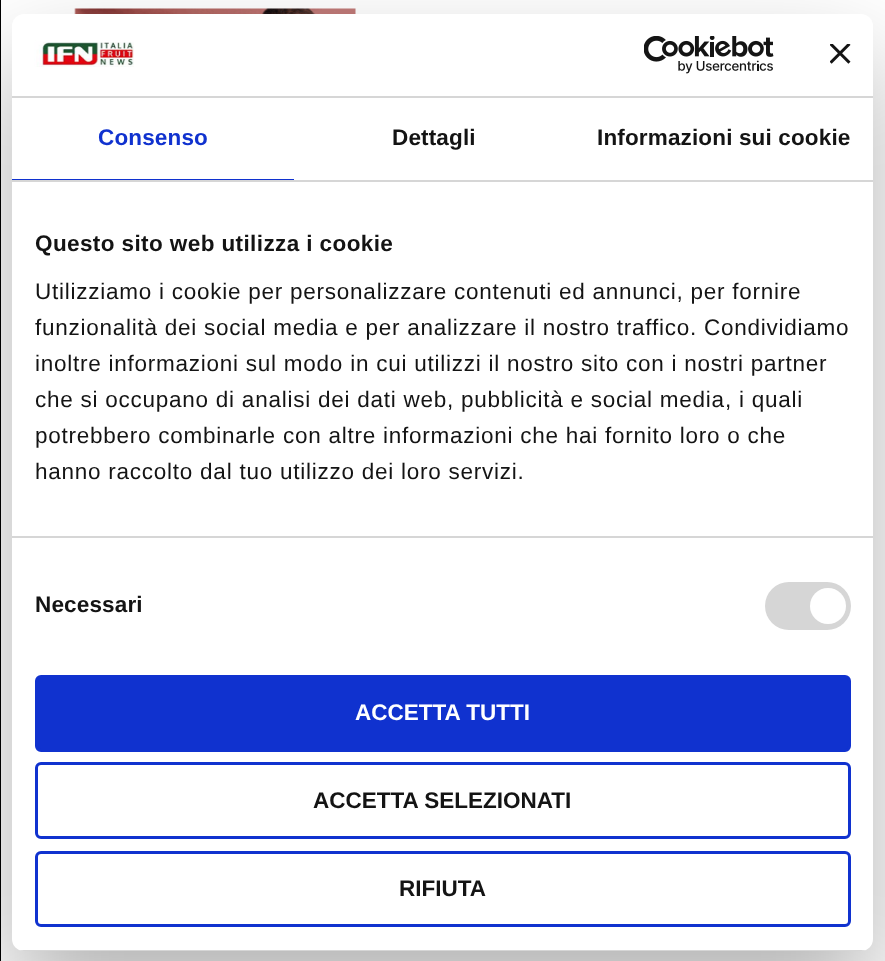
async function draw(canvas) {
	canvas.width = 885;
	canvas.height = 961;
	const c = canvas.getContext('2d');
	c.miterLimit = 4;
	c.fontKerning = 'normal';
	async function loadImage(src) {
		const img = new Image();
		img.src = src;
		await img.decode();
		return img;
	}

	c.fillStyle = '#fff';
	c.fillRect(0, 0, 885, 961);
	c.fillStyle = '#000';
	c.fillRect(0, 0, 1, 961);
	c.drawImage(await loadImage('img1.png'), 74, 8, 282, 6);
	c.fillStyle = '#0000004d';
	c.filter = 'blur(51px)';
	c.beginPath();
	c.roundRect(12, 62, 861, 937, 12);
	c.fill();
	c.filter = 'none';
	c.fillStyle = '#fff';
	c.beginPath();
	c.roundRect(12, 14, 861, 937, 12);
	c.fill();
	c.fillStyle = '#d6d6d6';
	c.fillRect(12, 96, 861, 2);
	c.drawImage(await loadImage('img2.png'), 34, 40, 100, 27);
	c.drawImage(await loadImage('img3.png'), 644, 36, 130, 38);
	c.drawImage(await loadImage('img4.png'), 830, 44, 21, 20);
	c.fillRect(12, 180, 861, 2);
	c.fillStyle = '#1032cf';
	c.fillRect(12, 179, 282, 1);
	c.letterSpacing = '0.15px';
	c.font = 'bold 22.5px Liberation Sans';
	c.fillText('Consenso', 98, 145);
	c.fillStyle = '#141414';
	c.fillText('Dettagli', 392, 145);
	c.fillText('Informazioni sui cookie', 597, 145);
	c.fillStyle = '#d6d6d6';
	c.fillRect(12, 536, 861, 2);
	c.letterSpacing = '0.4px';
	c.fillStyle = '#141414';
	c.fillText('Questo sito web utilizza i cookie', 35, 251);
	c.letterSpacing = '0.75px';
	c.font = '22.5px Liberation Sans';
	for (const [text, x, y] of [
		['Utilizziamo i cookie per personalizzare contenuti ed annunci, per fornire', 35, 299],
		['funzionalità dei social media e per analizzare il nostro traffico. Condividiamo', 35, 335],
		['inoltre informazioni sul modo in cui utilizzi il nostro sito con i nostri partner', 35, 371],
		['che si occupano di analisi dei dati web, pubblicità e social media, i quali', 35, 407],
		['potrebbero combinarle con altre informazioni che hai fornito loro o che', 35, 443],
		['hanno raccolto dal tuo utilizzo dei loro servizi.', 35, 479],
	]) {
		c.fillText(text, x, y);
	}
	c.letterSpacing = '0.15px';
	c.font = 'bold 22.5px Liberation Sans';
	c.fillText('Necessari', 35, 612);
	c.fillStyle = '#d6d6d6';
	c.beginPath();
	c.roundRect(765, 582, 86, 48, 24);
	c.fill();
	c.fillStyle = '#fff';
	c.beginPath();
	c.arc(828, 606, 18, 0, 2 * Math.PI);
	c.fill();
	c.save();
	c.beginPath();
	c.roundRect(12, 14, 861, 937, 12);
	c.clip();
	c.fillStyle = '#d6d6d6';
	c.fillRect(12, 950, 861, 1);
	c.restore();
	c.fillStyle = '#1032cf';
	c.beginPath();
	c.roundRect(36.5, 676.5, 813, 74, 4.5);
	c.fill();
	c.strokeStyle = '#1032cf';
	c.lineWidth = 3;
	c.stroke();
	c.letterSpacing = '0px';
	c.fillStyle = '#fff';
	c.fillText('ACCETTA TUTTI', 355, 720);
	c.beginPath();
	c.roundRect(36.5, 763.5, 813, 74, 4.5);
	c.stroke();
	c.fillStyle = '#141414';
	c.fillText('ACCETTA SELEZIONATI', 313, 808);
	c.beginPath();
	c.roundRect(36.5, 852.5, 813, 73, 4.5);
	c.stroke();
	c.fillText('RIFIUTA', 399, 896);
}

draw(document.querySelector('canvas'));
